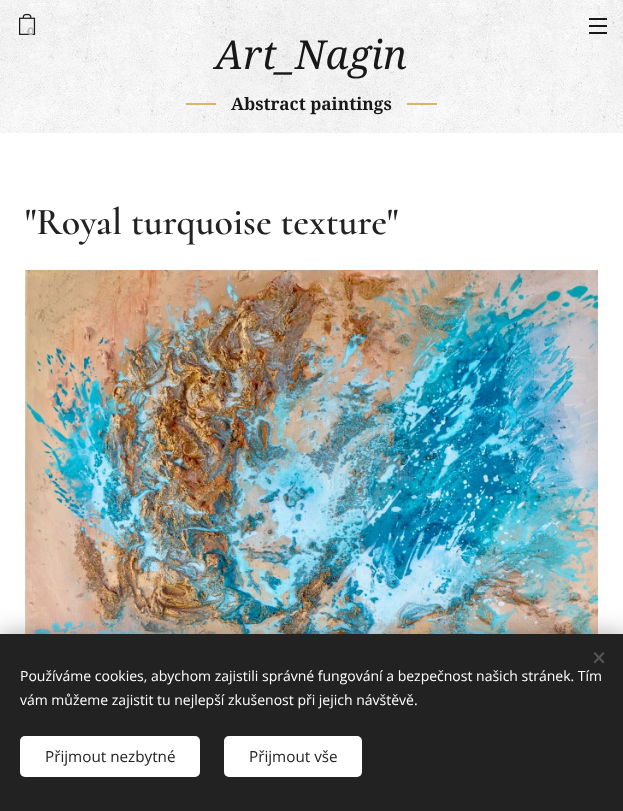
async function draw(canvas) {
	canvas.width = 623;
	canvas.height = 811;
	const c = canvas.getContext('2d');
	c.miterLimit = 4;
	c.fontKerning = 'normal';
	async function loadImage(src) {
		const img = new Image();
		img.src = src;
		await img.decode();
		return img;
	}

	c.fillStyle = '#fff';
	c.fillRect(0, 0, 623, 811);
	c.drawImage(await loadImage('img1.png'), 0, 0, 623, 133);
	c.drawImage(await loadImage('img2.png'), 19, 13, 17, 22);
	c.font = 'bold 11px Montserrat';
	c.fillStyle = '#bababa';
	c.fillText('0', 27, 35);
	for (const [x, y, w, h, color] of [
		[589, 25, 18, 2, '#000000e6'],
		[589, 18, 18, 2, '#000000e6'],
		[589, 32, 18, 2, '#000000e6'],
	]) {
		c.fillStyle = color;
		c.fillRect(x, y, w, h);
	}
	c.font = 'italic 40px Noto Serif';
	c.fillStyle = '#181818';
	c.fillText('Art_Nagin', 215, 69);
	c.fillStyle = '#d9b569';
	c.fillRect(186, 103, 30, 2);
	c.font = 'bold 17.25px Noto Serif';
	c.fillStyle = '#181818';
	c.fillText('Abstract paintings', 231, 110);
	c.fillStyle = '#d9b569';
	c.fillRect(407, 103, 30, 2);
	c.font = '600 38px Cormorant';
	c.fillStyle = '#222';
	c.fillText('"Royal turquoise texture"', 25, 234);
	c.drawImage(await loadImage('img3.png'), 25, 270, 573, 364);
	c.fillStyle = '#00000054';
	c.filter = 'blur(12.5px)';
	c.beginPath();
	c.rect(0, 634, 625, 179);
	c.fill();
	c.filter = 'none';
	c.fillStyle = '#222';
	c.fillRect(0, 634, 623, 177);
	c.fillStyle = '#555';
	c.beginPath();
	c.moveTo(593.5, 662);
	c.lineTo(603, 652);
	c.lineTo(604.5, 653.5);
	c.lineTo(595, 663.5);
	c.closePath();
	c.fill();
	c.beginPath();
	c.moveTo(595, 652);
	c.lineTo(604.5, 662);
	c.lineTo(603, 663.5);
	c.lineTo(593.5, 653.5);
	c.closePath();
	c.fill();
	c.font = '14px Open Sans';
	c.fillStyle = '#fff';
	c.fillText('Používáme cookies, abychom zajistili správné fungování a bezpečnost našich stránek. Tím', 20, 681);
	c.fillText('vám můžeme zajistit tu nejlepší zkušenost při jejich návštěvě.', 20, 705);
	c.beginPath();
	c.roundRect(20, 736, 180, 41, 5);
	c.fill();
	c.font = '15.25px Open Sans';
	c.fillStyle = '#222';
	c.fillText('Přijmout nezbytné', 45, 762);
	c.fillStyle = '#fff';
	c.beginPath();
	c.roundRect(224, 736, 138, 41, 5);
	c.fill();
	c.fillStyle = '#222';
	c.fillText('Přijmout vše', 249, 762);
}

draw(document.querySelector('canvas'));
